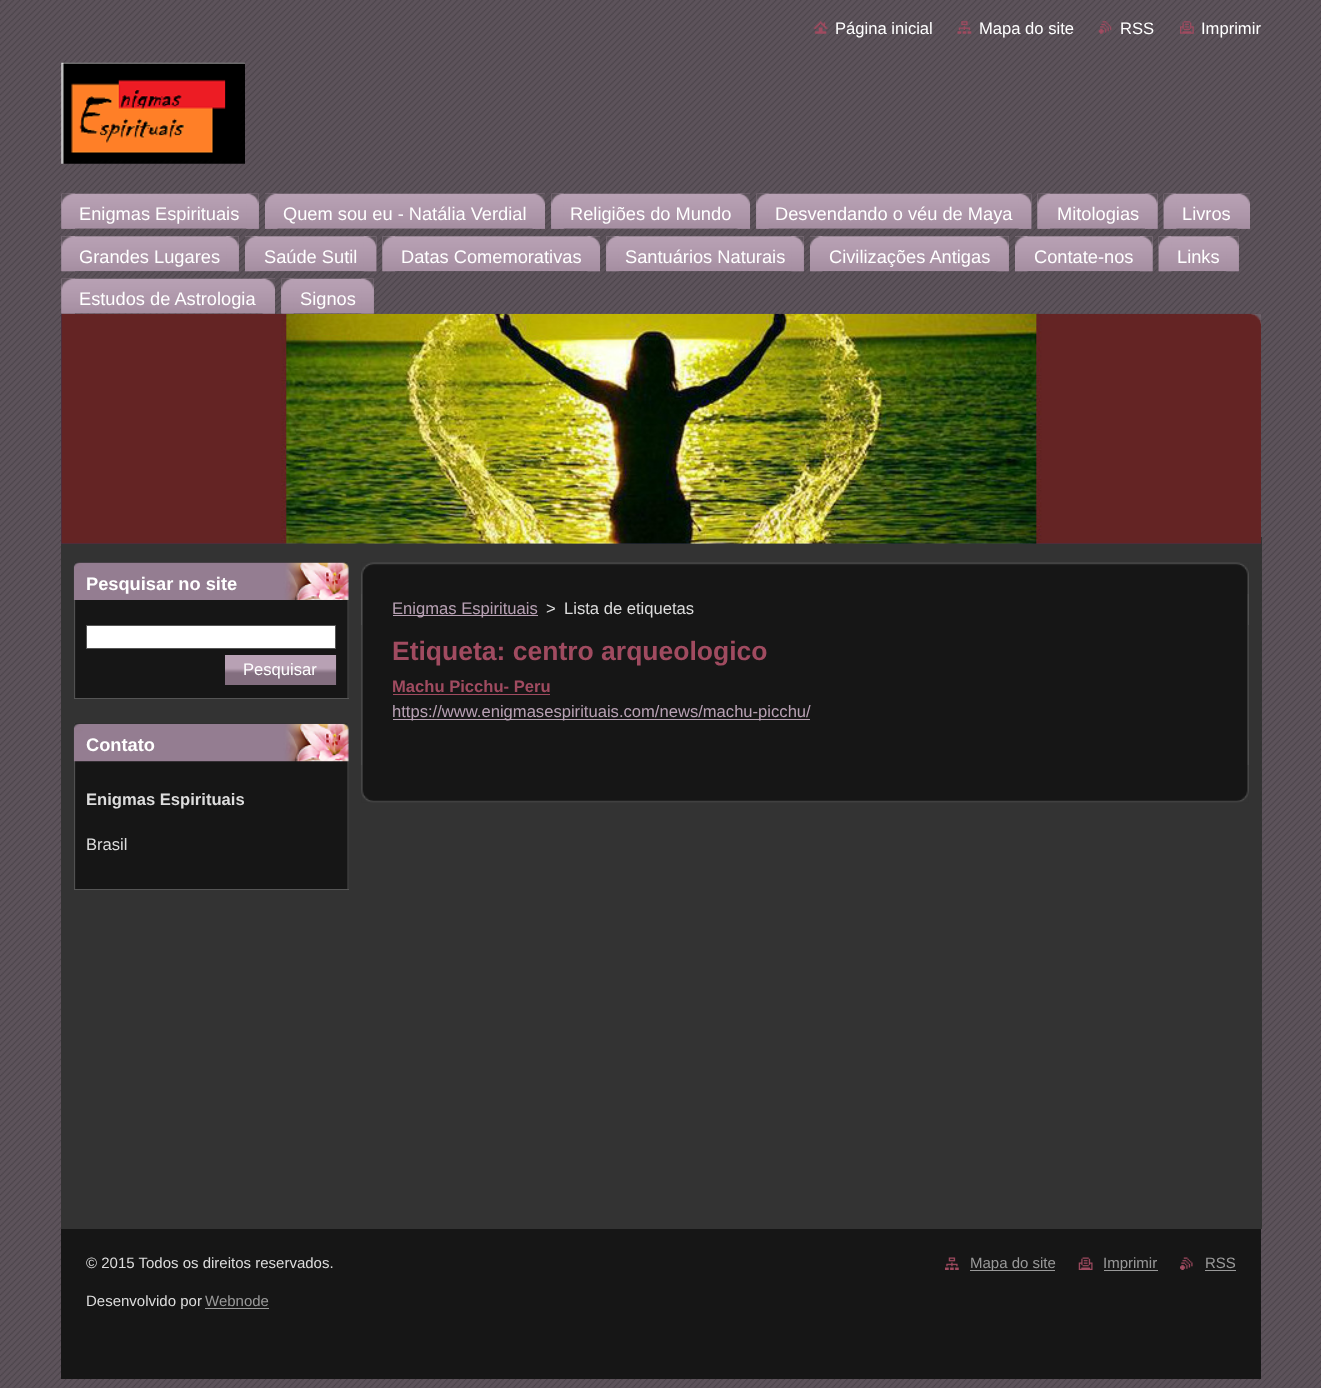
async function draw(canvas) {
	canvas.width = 1321;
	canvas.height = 1388;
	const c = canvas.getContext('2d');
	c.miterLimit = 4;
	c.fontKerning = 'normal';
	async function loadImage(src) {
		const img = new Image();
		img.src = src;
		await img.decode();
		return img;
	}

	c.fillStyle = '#fff';
	c.fillRect(0, 0, 1321, 1388);
	c.drawImage(await loadImage('img1.png'), 0, 0, 1321, 1388);
	c.fillStyle = '#333';
	c.fillRect(61, 537, 1201, 692);
	c.drawImage(await loadImage('img2.png'), 813, 21, 15, 13);
	c.font = '16.6px Liberation Sans';
	c.fillStyle = '#fff';
	c.fillText('Página inicial', 835, 34);
	c.drawImage(await loadImage('img3.png'), 957, 21, 15, 13);
	c.fillText('Mapa do site', 979, 34);
	c.drawImage(await loadImage('img4.png'), 1098, 21, 14, 13);
	c.fillText('RSS', 1120, 34);
	c.drawImage(await loadImage('img5.png'), 1180, 21, 14, 13);
	c.fillText('Imprimir', 1201, 34);
	c.drawImage(await loadImage('img6.png'), 61, 62, 184, 102);
	c.drawImage(await loadImage('img7.png'), 61, 193, 198, 36);
	c.drawImage(await loadImage('img8.png'), 61, 193, 14, 36);
	c.drawImage(await loadImage('img9.png'), 246, 193, 13, 36);
	c.font = '18.25px Liberation Sans';
	c.fillText('Enigmas Espirituais', 79, 220);
	c.drawImage(await loadImage('img10.png'), 265, 193, 280, 36);
	c.drawImage(await loadImage('img11.png'), 265, 193, 13, 36);
	c.drawImage(await loadImage('img12.png'), 532, 193, 13, 36);
	c.fillText('Quem sou eu - Natália Verdial', 283, 220);
	c.drawImage(await loadImage('img13.png'), 551, 193, 199, 36);
	c.drawImage(await loadImage('img14.png'), 551, 193, 13, 36);
	c.drawImage(await loadImage('img15.png'), 737, 193, 13, 36);
	c.fillText('Religiões do Mundo', 570, 220);
	c.drawImage(await loadImage('img16.png'), 756, 193, 276, 36);
	c.drawImage(await loadImage('img17.png'), 756, 193, 13, 36);
	c.drawImage(await loadImage('img18.png'), 1018, 193, 14, 36);
	c.fillText('Desvendando o véu de Maya', 775, 220);
	c.drawImage(await loadImage('img19.png'), 1037, 193, 121, 36);
	c.drawImage(await loadImage('img20.png'), 1037, 193, 13, 36);
	c.drawImage(await loadImage('img21.png'), 1145, 193, 13, 36);
	c.fillText('Mitologias', 1057, 220);
	c.drawImage(await loadImage('img22.png'), 1163, 193, 87, 36);
	c.drawImage(await loadImage('img23.png'), 1163, 193, 14, 36);
	c.drawImage(await loadImage('img15.png'), 1237, 193, 13, 36);
	c.fillText('Livros', 1182, 220);
	c.drawImage(await loadImage('img24.png'), 61, 236, 178, 36);
	c.drawImage(await loadImage('img25.png'), 61, 236, 14, 36);
	c.drawImage(await loadImage('img26.png'), 226, 236, 13, 36);
	c.fillText('Grandes Lugares', 79, 263);
	c.drawImage(await loadImage('img27.png'), 245, 236, 132, 36);
	c.drawImage(await loadImage('img28.png'), 245, 236, 13, 36);
	c.drawImage(await loadImage('img29.png'), 363, 236, 14, 36);
	c.fillText('Saúde Sutil', 264, 263);
	c.drawImage(await loadImage('img30.png'), 382, 236, 218, 36);
	c.drawImage(await loadImage('img31.png'), 382, 236, 13, 36);
	c.drawImage(await loadImage('img32.png'), 587, 236, 13, 36);
	c.fillText('Datas Comemorativas', 401, 263);
	c.drawImage(await loadImage('img33.png'), 606, 236, 198, 36);
	c.drawImage(await loadImage('img34.png'), 606, 236, 13, 36);
	c.drawImage(await loadImage('img35.png'), 791, 236, 13, 36);
	c.fillText('Santuários Naturais', 625, 263);
	c.drawImage(await loadImage('img36.png'), 810, 236, 199, 36);
	c.drawImage(await loadImage('img37.png'), 810, 236, 13, 36);
	c.drawImage(await loadImage('img38.png'), 996, 236, 13, 36);
	c.fillText('Civilizações Antigas', 829, 263);
	c.drawImage(await loadImage('img39.png'), 1015, 236, 138, 36);
	c.drawImage(await loadImage('img40.png'), 1015, 236, 13, 36);
	c.drawImage(await loadImage('img41.png'), 1140, 236, 13, 36);
	c.fillText('Contate-nos', 1034, 263);
	c.drawImage(await loadImage('img42.png'), 1158, 236, 81, 36);
	c.drawImage(await loadImage('img43.png'), 1158, 236, 14, 36);
	c.drawImage(await loadImage('img44.png'), 1226, 236, 13, 36);
	c.fillText('Links', 1177, 263);
	c.drawImage(await loadImage('img45.png'), 61, 278, 214, 36);
	c.drawImage(await loadImage('img46.png'), 61, 278, 14, 36);
	c.drawImage(await loadImage('img47.png'), 262, 278, 13, 36);
	c.fillText('Estudos de Astrologia', 79, 305);
	c.drawImage(await loadImage('img48.png'), 281, 278, 93, 36);
	c.drawImage(await loadImage('img49.png'), 281, 278, 13, 36);
	c.drawImage(await loadImage('img50.png'), 361, 278, 13, 36);
	c.fillText('Signos', 300, 305);
	c.fillStyle = '#383759';
	c.fillRect(61, 314, 1200, 230);
	c.drawImage(await loadImage('img51.png'), 61, 313, 1200, 231);
	c.drawImage(await loadImage('img52.png'), 1251, 314, 10, 10);
	c.fillStyle = '#161616';
	c.fillRect(348, 563, 1, 135);
	c.drawImage(await loadImage('img53.png'), 74, 562, 275, 136);
	c.fillStyle = '#555';
	c.fillRect(74, 698, 275, 1);
	c.drawImage(await loadImage('img54.png'), 73, 562, 276, 38);
	c.font = 'bold 18.25px Liberation Sans';
	c.fillStyle = '#fff';
	c.fillText('Pesquisar no site', 86, 590);
	c.beginPath();
	c.rect(86.5, 625.5, 249, 23);
	c.fill();
	c.strokeStyle = '#555';
	c.stroke();
	c.drawImage(await loadImage('img55.png'), 225, 655, 112, 30);
	c.font = '16.6px Liberation Sans';
	c.fillText('Pesquisar', 243, 675);
	c.fillStyle = '#161616';
	c.fillRect(348, 724, 1, 165);
	c.drawImage(await loadImage('img56.png'), 74, 723, 275, 166);
	c.fillStyle = '#555';
	c.fillRect(74, 889, 275, 1);
	c.drawImage(await loadImage('img57.png'), 73, 723, 276, 39);
	c.font = 'bold 18.25px Liberation Sans';
	c.fillStyle = '#fff';
	c.fillText('Contato', 86, 751);
	c.font = 'bold 16.6px Liberation Sans';
	c.fillStyle = '#ddd';
	c.fillText('Enigmas Espirituais', 86, 805);
	c.font = '16.6px Liberation Sans';
	c.fillText('Brasil', 86, 850);
	c.drawImage(await loadImage('img58.png'), 361, 562, 888, 63);
	c.drawImage(await loadImage('img59.png'), 361, 740, 888, 63);
	c.drawImage(await loadImage('img60.png'), 361, 594, 888, 171);
	c.fillStyle = '#b8a1b4';
	c.fillRect(393, 615, 145, 1);
	c.fillText('Enigmas Espirituais', 392, 614);
	c.fillStyle = '#ddd';
	c.fillText('>', 546, 614);
	c.fillText('Lista de etiquetas', 564, 614);
	c.font = 'bold 26.5px Liberation Sans';
	c.fillStyle = '#a04b60';
	c.fillText('Etiqueta: centro arqueologico', 392, 660);
	c.font = 'bold 16.6px Liberation Sans';
	c.fillText('Machu Picchu- Peru', 392, 692);
	c.fillRect(393, 694, 157, 1);
	c.fillStyle = '#b8a1b4';
	c.fillRect(393, 719, 417, 1);
	c.font = '16.6px Liberation Sans';
	c.fillText('https://www.enigmasespirituais.com/news/machu-picchu/', 392, 717);
	c.fillStyle = '#161616';
	c.fillRect(61, 1229, 1200, 150);
	c.font = '15px Liberation Sans';
	c.fillStyle = '#ddd';
	c.fillText('© 2015 Todos os direitos reservados.', 86, 1268);
	c.fillText('Desenvolvido por', 86, 1306);
	c.fillStyle = '#999';
	c.fillText('Webnode', 205, 1306);
	c.fillRect(205, 1308, 64, 1);
	c.drawImage(await loadImage('img61.png'), 945, 1257, 14, 13);
	c.fillRect(970, 1270, 85, 1);
	c.fillText('Mapa do site', 970, 1268);
	c.drawImage(await loadImage('img62.png'), 1078, 1257, 15, 13);
	c.fillRect(1104, 1270, 54, 1);
	c.fillText('Imprimir', 1103, 1268);
	c.drawImage(await loadImage('img63.png'), 1180, 1257, 13, 13);
	c.fillText('RSS', 1205, 1268);
	c.fillRect(1205, 1270, 31, 1);
}

draw(document.querySelector('canvas'));
